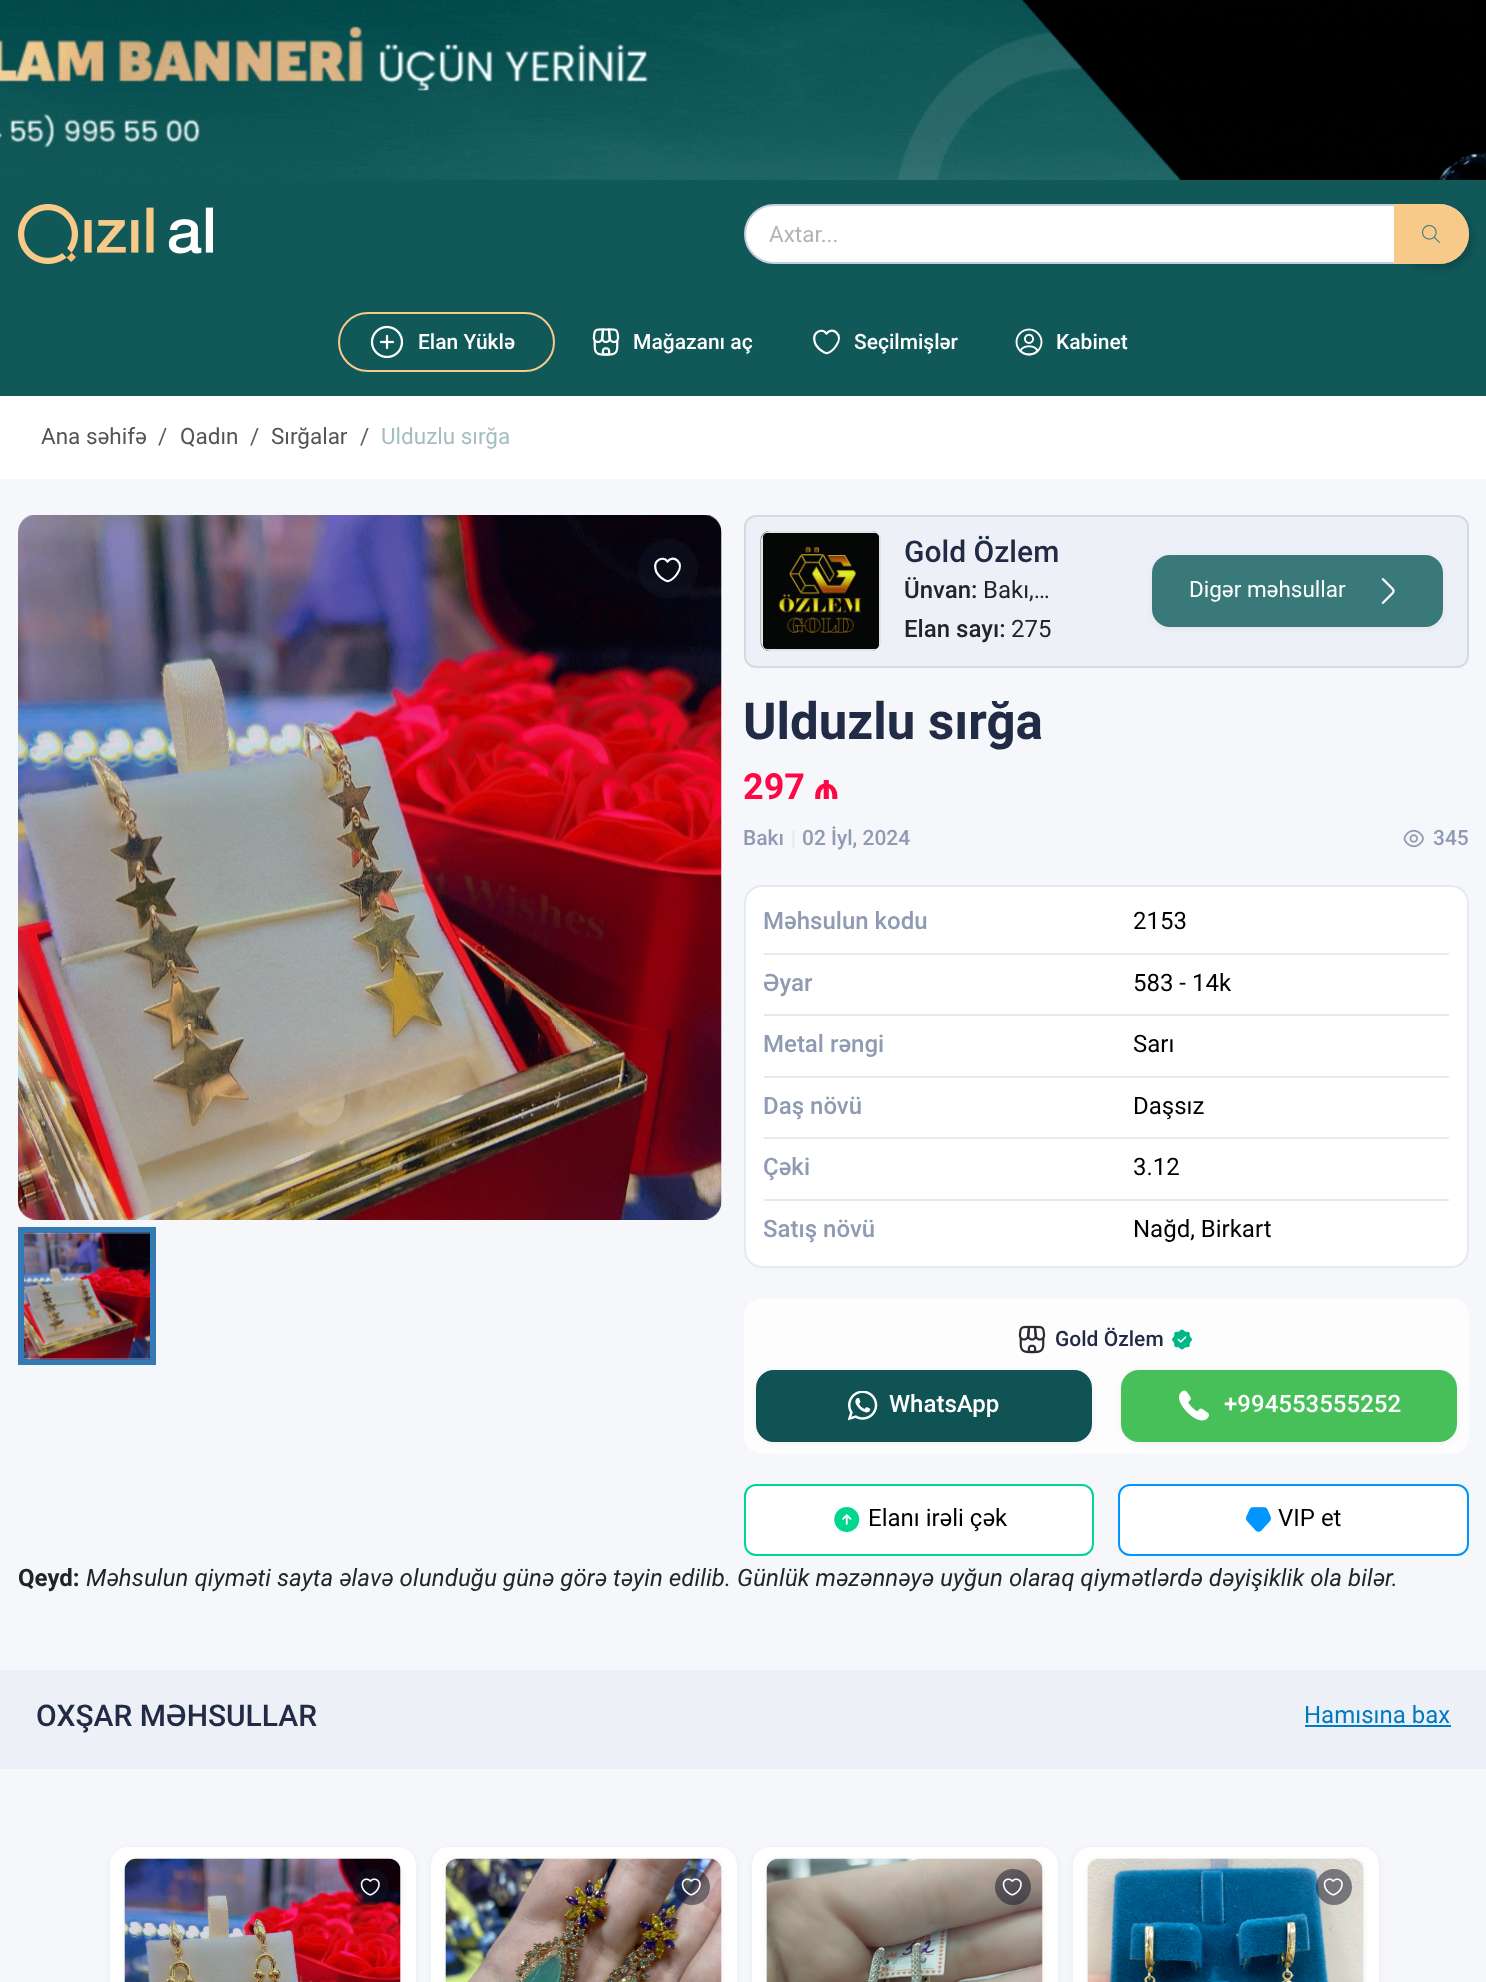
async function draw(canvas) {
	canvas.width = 1486;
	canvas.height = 1982;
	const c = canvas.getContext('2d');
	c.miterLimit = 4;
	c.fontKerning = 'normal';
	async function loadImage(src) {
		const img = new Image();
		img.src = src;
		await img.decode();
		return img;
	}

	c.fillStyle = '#f6f7fa';
	c.fillRect(0, 0, 1486, 1982);
	c.drawImage(await loadImage('img1.png'), 0, 0, 1486, 180);
	c.fillStyle = '#115859';
	c.fillRect(0, 180, 1486, 216);
	c.drawImage(await loadImage('img2.png'), 18, 204, 195, 60);
	c.fillStyle = '#fff';
	c.beginPath();
	c.roundRect(745, 205, 723, 58, 29);
	c.fill();
	c.strokeStyle = '#c5cee0';
	c.lineWidth = 2;
	c.stroke();
	c.font = '22.5px Roboto';
	c.fillStyle = '#b3b3b3';
	c.fillText('Axtar...', 769, 242);
	c.fillStyle = '#00000026';
	c.filter = 'blur(3px)';
	c.beginPath();
	c.roundRect(1398, 209, 75, 60, 30);
	c.fill();
	c.filter = 'none';
	c.fillStyle = '#f8ca8a';
	c.beginPath();
	c.roundRect(1394, 204, 75, 60, [0, 30, 30, 0]);
	c.fill();
	c.drawImage(await loadImage('img3.png'), 1422, 225, 18, 18);
	c.beginPath();
	c.roundRect(339, 313, 215, 58, 29);
	c.strokeStyle = '#f8ca8a';
	c.stroke();
	c.drawImage(await loadImage('img4.png'), 370, 325, 34, 34);
	c.font = '500 21px Roboto';
	c.fillStyle = '#fff';
	c.fillText('Elan Yüklə', 418, 349);
	c.drawImage(await loadImage('img5.png'), 592, 328, 28, 28);
	c.fillText('Mağazanı aç', 633, 349);
	c.beginPath();
	c.moveTo(827.5, 353);
	c.bezierCurveTo(825, 354, 822, 351, 820.5, 350);
	c.bezierCurveTo(817.5, 347.5, 815, 344.5, 814.5, 341);
	c.bezierCurveTo(812.5, 332, 822, 327.5, 826.5, 333.5);
	c.bezierCurveTo(832, 326, 844.5, 334.5, 836, 346);
	c.bezierCurveTo(834, 349, 831, 352, 827.5, 353);
	c.closePath();
	c.strokeStyle = '#fff';
	c.lineWidth = 2.2;
	c.lineCap = 'round';
	c.lineJoin = 'round';
	c.stroke();
	c.fillText('Seçilmişlər', 854, 349);
	c.drawImage(await loadImage('img6.png'), 1015, 328, 28, 28);
	c.fillText('Kabinet', 1056, 349);
	c.fillRect(0, 396, 1486, 83);
	c.font = '22.5px Roboto';
	c.fillStyle = '#545454';
	c.fillText('Ana səhifə', 41, 444);
	c.fillStyle = '#595c5f';
	c.fillText('/', 158, 444);
	c.fillStyle = '#545454';
	c.fillText('Qadın', 180, 444);
	c.fillStyle = '#595c5f';
	c.fillText('/', 250, 444);
	c.fillStyle = '#545454';
	c.fillText('Sırğalar', 271, 444);
	c.fillStyle = '#595c5f';
	c.fillText('/', 360, 444);
	c.fillStyle = '#a2bfbd';
	c.fillText('Ulduzlu sırğa', 381, 444);
	c.drawImage(await loadImage('img7.png'), 18, 515, 704, 705);
	c.strokeStyle = '#337ab7';
	c.lineWidth = 6;
	c.lineJoin = 'miter';
	c.strokeRect(21, 1230, 132, 132);
	c.drawImage(await loadImage('img8.png'), 24, 1232, 126, 128);
	c.fillStyle = '#10142680';
	c.beginPath();
	c.arc(668, 569, 30, 0, 2 * Math.PI);
	c.fill();
	c.beginPath();
	c.moveTo(668.5, 581);
	c.bezierCurveTo(666, 582, 663, 579, 661.5, 578);
	c.bezierCurveTo(658.5, 575.5, 656, 572.5, 655.5, 569);
	c.bezierCurveTo(653.5, 560, 663, 555.5, 667.5, 561.5);
	c.bezierCurveTo(673, 554, 685.5, 562.5, 677, 574);
	c.bezierCurveTo(675, 577, 672, 580, 668.5, 581);
	c.closePath();
	c.strokeStyle = '#fff';
	c.lineWidth = 2.2;
	c.lineJoin = 'round';
	c.stroke();
	c.fillStyle = '#edf1f7';
	c.beginPath();
	c.roundRect(745, 516, 723, 151, 11);
	c.fill();
	c.strokeStyle = '#cedede';
	c.lineWidth = 2;
	c.lineJoin = 'miter';
	c.stroke();
	c.drawImage(await loadImage('img9.png'), 760, 531, 121, 120);
	c.fillStyle = '#e4e4e4';
	c.beginPath();
	c.moveTo(770, 531);
	c.bezierCurveTo(765, 531, 761, 535, 761, 540);
	c.lineTo(761, 642);
	c.bezierCurveTo(761, 647, 765, 651, 770, 651);
	c.lineTo(872, 651);
	c.bezierCurveTo(877, 651, 881, 647, 881, 642);
	c.lineTo(881, 540);
	c.bezierCurveTo(881, 535, 877, 531, 872, 531);
	c.closePath();
	c.moveTo(767, 533);
	c.bezierCurveTo(765, 533, 763, 535, 763, 537);
	c.lineTo(763, 645);
	c.bezierCurveTo(763, 647, 765, 649, 767, 649);
	c.lineTo(875, 649);
	c.bezierCurveTo(877, 649, 879, 647, 879, 645);
	c.lineTo(879, 537);
	c.bezierCurveTo(879, 535, 877, 533, 875, 533);
	c.closePath();
	c.fill('evenodd');
	c.font = '500 30px Roboto';
	c.fillStyle = '#222b45';
	c.fillText('Gold Özlem', 904, 562);
	c.font = '500 24px Roboto';
	c.fillStyle = '#212529';
	c.fillText('Ünvan:', 904, 598);
	c.font = '24px Roboto';
	c.fillText('Bakı,…', 983, 598);
	c.font = '500 24px Roboto';
	c.fillText('Elan sayı:', 904, 637);
	c.font = '24px Roboto';
	c.fillText('275', 1011, 637);
	c.fillStyle = '#0c0c0d0d';
	c.filter = 'blur(3px)';
	c.beginPath();
	c.roundRect(1152, 557, 291, 72, 18);
	c.fill();
	c.filter = 'none';
	c.fillStyle = '#39797a';
	c.beginPath();
	c.roundRect(1153, 556, 289, 70, 17);
	c.fill();
	c.strokeStyle = '#39797a';
	c.stroke();
	c.font = '22.5px Roboto';
	c.fillStyle = '#fff';
	c.fillText('Digər məhsullar', 1189, 597);
	c.drawImage(await loadImage('img10.png'), 1381, 578, 14, 26);
	c.font = 'bold 51px Roboto';
	c.fillStyle = '#222b45';
	c.fillText('Ulduzlu sırğa', 743, 739);
	c.font = 'bold 36px Roboto';
	c.fillStyle = '#ff0744';
	c.fillText('297 ₼', 743, 799);
	c.font = '500 21px Roboto';
	c.fillStyle = '#8f9bb3';
	c.fillText('Bakı', 743, 845);
	c.fillStyle = '#eaedf4';
	c.fillRect(792, 830, 3, 18);
	c.fillStyle = '#8f9bb3';
	c.fillText('02 İyl, 2024', 802, 845);
	c.drawImage(await loadImage('img11.png'), 1403, 829, 21, 19);
	c.fillText('345', 1433, 845);
	c.fillStyle = '#fff';
	c.beginPath();
	c.roundRect(745, 886, 723, 381, 17);
	c.fill();
	c.strokeStyle = '#e4e9f2';
	c.stroke();
	c.save();
	c.beginPath();
	c.roundRect(764, 905, 685, 343, 12);
	c.clip();
	c.font = '500 24px Roboto';
	c.fillStyle = '#8f9bb3';
	c.fillText('Məhsulun kodu', 763, 929);
	c.restore();
	c.fillStyle = '#e4e9f2';
	c.fillRect(764, 953, 685, 2);
	c.font = '24px Roboto';
	c.fillStyle = '#000';
	c.fillText('2153', 1133, 929);
	c.save();
	c.beginPath();
	c.roundRect(764, 905, 685, 343, 12);
	c.clip();
	c.font = '500 24px Roboto';
	c.fillStyle = '#8f9bb3';
	c.fillText('Əyar', 763, 991);
	c.restore();
	c.fillStyle = '#e4e9f2';
	c.fillRect(764, 1014, 685, 2);
	c.fillStyle = '#000';
	c.fillText('583 - 14k', 1133, 991);
	c.font = '500 24px Roboto';
	c.fillStyle = '#8f9bb3';
	c.fillText('Metal rəngi', 763, 1052);
	c.fillStyle = '#e4e9f2';
	c.fillRect(764, 1076, 685, 2);
	c.font = '24px Roboto';
	c.fillStyle = '#000';
	c.fillText('Sarı', 1133, 1052);
	c.font = '500 24px Roboto';
	c.fillStyle = '#8f9bb3';
	c.fillText('Daş növü', 763, 1114);
	c.fillStyle = '#e4e9f2';
	c.fillRect(764, 1137, 685, 2);
	c.font = '24px Roboto';
	c.fillStyle = '#000';
	c.fillText('Daşsız', 1133, 1114);
	c.font = '500 24px Roboto';
	c.fillStyle = '#8f9bb3';
	c.fillText('Çəki', 763, 1175);
	c.fillStyle = '#e4e9f2';
	c.fillRect(764, 1199, 685, 2);
	c.font = '24px Roboto';
	c.fillStyle = '#000';
	c.fillText('3.12', 1133, 1175);
	c.font = '500 24px Roboto';
	c.fillStyle = '#8f9bb3';
	c.fillText('Satış növü', 763, 1237);
	c.font = '24px Roboto';
	c.fillStyle = '#000';
	c.fillText('Nağd, Birkart', 1133, 1237);
	c.fillStyle = '#fdfdfe';
	c.beginPath();
	c.roundRect(744, 1298, 725, 156, 18);
	c.fill();
	c.drawImage(await loadImage('img12.png'), 1018, 1325, 28, 29);
	c.font = '500 21px Roboto';
	c.fillStyle = '#222b45';
	c.fillText('Gold Özlem', 1055, 1346);
	c.drawImage(await loadImage('img13.png'), 1172, 1329, 20, 21);
	c.fillStyle = '#0c0c0d0d';
	c.filter = 'blur(3px)';
	c.beginPath();
	c.roundRect(756, 1371, 336, 72, 18);
	c.fill();
	c.filter = 'none';
	c.fillStyle = '#105354';
	c.beginPath();
	c.roundRect(757, 1371, 334, 70, 17);
	c.fill();
	c.strokeStyle = '#105354';
	c.stroke();
	c.drawImage(await loadImage('img14.png'), 848, 1391, 30, 30);
	c.font = '500 24px Roboto';
	c.fillStyle = '#fff';
	c.fillText('WhatsApp', 889, 1412);
	c.fillStyle = '#0c0c0d0d';
	c.filter = 'blur(3px)';
	c.beginPath();
	c.roundRect(1121, 1371, 336, 72, 18);
	c.fill();
	c.filter = 'none';
	c.fillStyle = '#47c05a';
	c.beginPath();
	c.roundRect(1121, 1370, 336, 72, 18);
	c.fill();
	c.drawImage(await loadImage('img15.png'), 1179, 1390, 30, 31);
	c.fillStyle = '#fff';
	c.fillText('+994553555252', 1224, 1412);
	c.beginPath();
	c.roundRect(745, 1485, 348, 70, 11);
	c.fill();
	c.strokeStyle = '#00d68f';
	c.stroke();
	c.drawImage(await loadImage('img16.png'), 834, 1507, 26, 25);
	c.font = '24px Roboto';
	c.fillStyle = '#000';
	c.fillText('Elanı irəli çək', 868, 1526);
	c.fillStyle = '#fff';
	c.beginPath();
	c.roundRect(1119, 1485, 349, 70, 11);
	c.fill();
	c.strokeStyle = '#0095ff';
	c.stroke();
	c.drawImage(await loadImage('img17.png'), 1246, 1507, 25, 25);
	c.fillStyle = '#000';
	c.fillText('VIP et', 1278, 1526);
	c.font = 'bold 24px Roboto';
	c.fillStyle = '#212529';
	c.fillText('Qeyd:', 18, 1586);
	c.font = 'italic 24px Roboto';
	c.fillText('Məhsulun qiyməti sayta əlavə olunduğu günə görə təyin edilib. Günlük məzənnəyə uyğun olaraq qiymətlərdə dəyişiklik ola bilər.', 86, 1586);
	c.fillStyle = '#edf1f7';
	c.fillRect(0, 1670, 1486, 99);
	c.font = '500 30px Roboto';
	c.fillStyle = '#222b45';
	c.fillText('OXŞAR MƏHSULLAR', 36, 1726);
	c.font = '24px Roboto';
	c.fillStyle = '#007abe';
	c.fillText('Hamısına bax', 1304, 1723);
	c.fillRect(1305, 1725, 146, 2);
	c.fillStyle = '#0c0c0d0d';
	c.filter = 'blur(3px)';
	c.beginPath();
	c.roundRect(110, 1848, 306, 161, 18);
	c.fill();
	c.filter = 'none';
	c.fillStyle = '#fff';
	c.beginPath();
	c.roundRect(110, 1847, 306, 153, 18);
	c.fill();
	c.fillStyle = '#0c0c0d0d';
	c.filter = 'blur(3px)';
	c.beginPath();
	c.roundRect(125, 1860, 276, 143, 12);
	c.fill();
	c.filter = 'none';
	c.drawImage(await loadImage('img18.png'), 124, 1858, 277, 124);
	c.fillStyle = '#10142680';
	c.beginPath();
	c.arc(371, 1887, 18, 0, 2 * Math.PI);
	c.fill();
	c.drawImage(await loadImage('img19.png'), 360, 1878, 20, 18);
	c.fillStyle = '#0c0c0d0d';
	c.filter = 'blur(3px)';
	c.beginPath();
	c.roundRect(431, 1848, 306, 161, 18);
	c.fill();
	c.filter = 'none';
	c.fillStyle = '#fff';
	c.beginPath();
	c.roundRect(431, 1847, 306, 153, 18);
	c.fill();
	c.fillStyle = '#0c0c0d0d';
	c.filter = 'blur(3px)';
	c.beginPath();
	c.roundRect(446, 1860, 276, 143, 12);
	c.fill();
	c.filter = 'none';
	c.drawImage(await loadImage('img20.png'), 445, 1858, 277, 124);
	c.fillStyle = '#10142680';
	c.beginPath();
	c.arc(692, 1887, 18, 0, 2 * Math.PI);
	c.fill();
	c.drawImage(await loadImage('img21.png'), 681, 1878, 20, 18);
	c.fillStyle = '#0c0c0d0d';
	c.filter = 'blur(3px)';
	c.beginPath();
	c.roundRect(752, 1848, 306, 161, 18);
	c.fill();
	c.filter = 'none';
	c.fillStyle = '#fff';
	c.beginPath();
	c.roundRect(752, 1847, 306, 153, 18);
	c.fill();
	c.fillStyle = '#0c0c0d0d';
	c.filter = 'blur(3px)';
	c.beginPath();
	c.roundRect(767, 1860, 276, 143, 12);
	c.fill();
	c.filter = 'none';
	c.drawImage(await loadImage('img22.png'), 766, 1858, 277, 124);
	c.fillStyle = '#10142680';
	c.beginPath();
	c.arc(1013, 1887, 18, 0, 2 * Math.PI);
	c.fill();
	c.drawImage(await loadImage('img23.png'), 1002, 1878, 20, 18);
	c.fillStyle = '#0c0c0d0d';
	c.filter = 'blur(3px)';
	c.beginPath();
	c.roundRect(1073, 1848, 306, 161, 18);
	c.fill();
	c.filter = 'none';
	c.fillStyle = '#fff';
	c.beginPath();
	c.roundRect(1073, 1847, 306, 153, 18);
	c.fill();
	c.fillStyle = '#0c0c0d0d';
	c.filter = 'blur(3px)';
	c.beginPath();
	c.roundRect(1088, 1860, 276, 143, 12);
	c.fill();
	c.filter = 'none';
	c.drawImage(await loadImage('img24.png'), 1087, 1858, 277, 124);
	c.fillStyle = '#10142680';
	c.beginPath();
	c.arc(1334, 1887, 18, 0, 2 * Math.PI);
	c.fill();
	c.drawImage(await loadImage('img25.png'), 1323, 1878, 20, 18);
}

draw(document.querySelector('canvas'));
